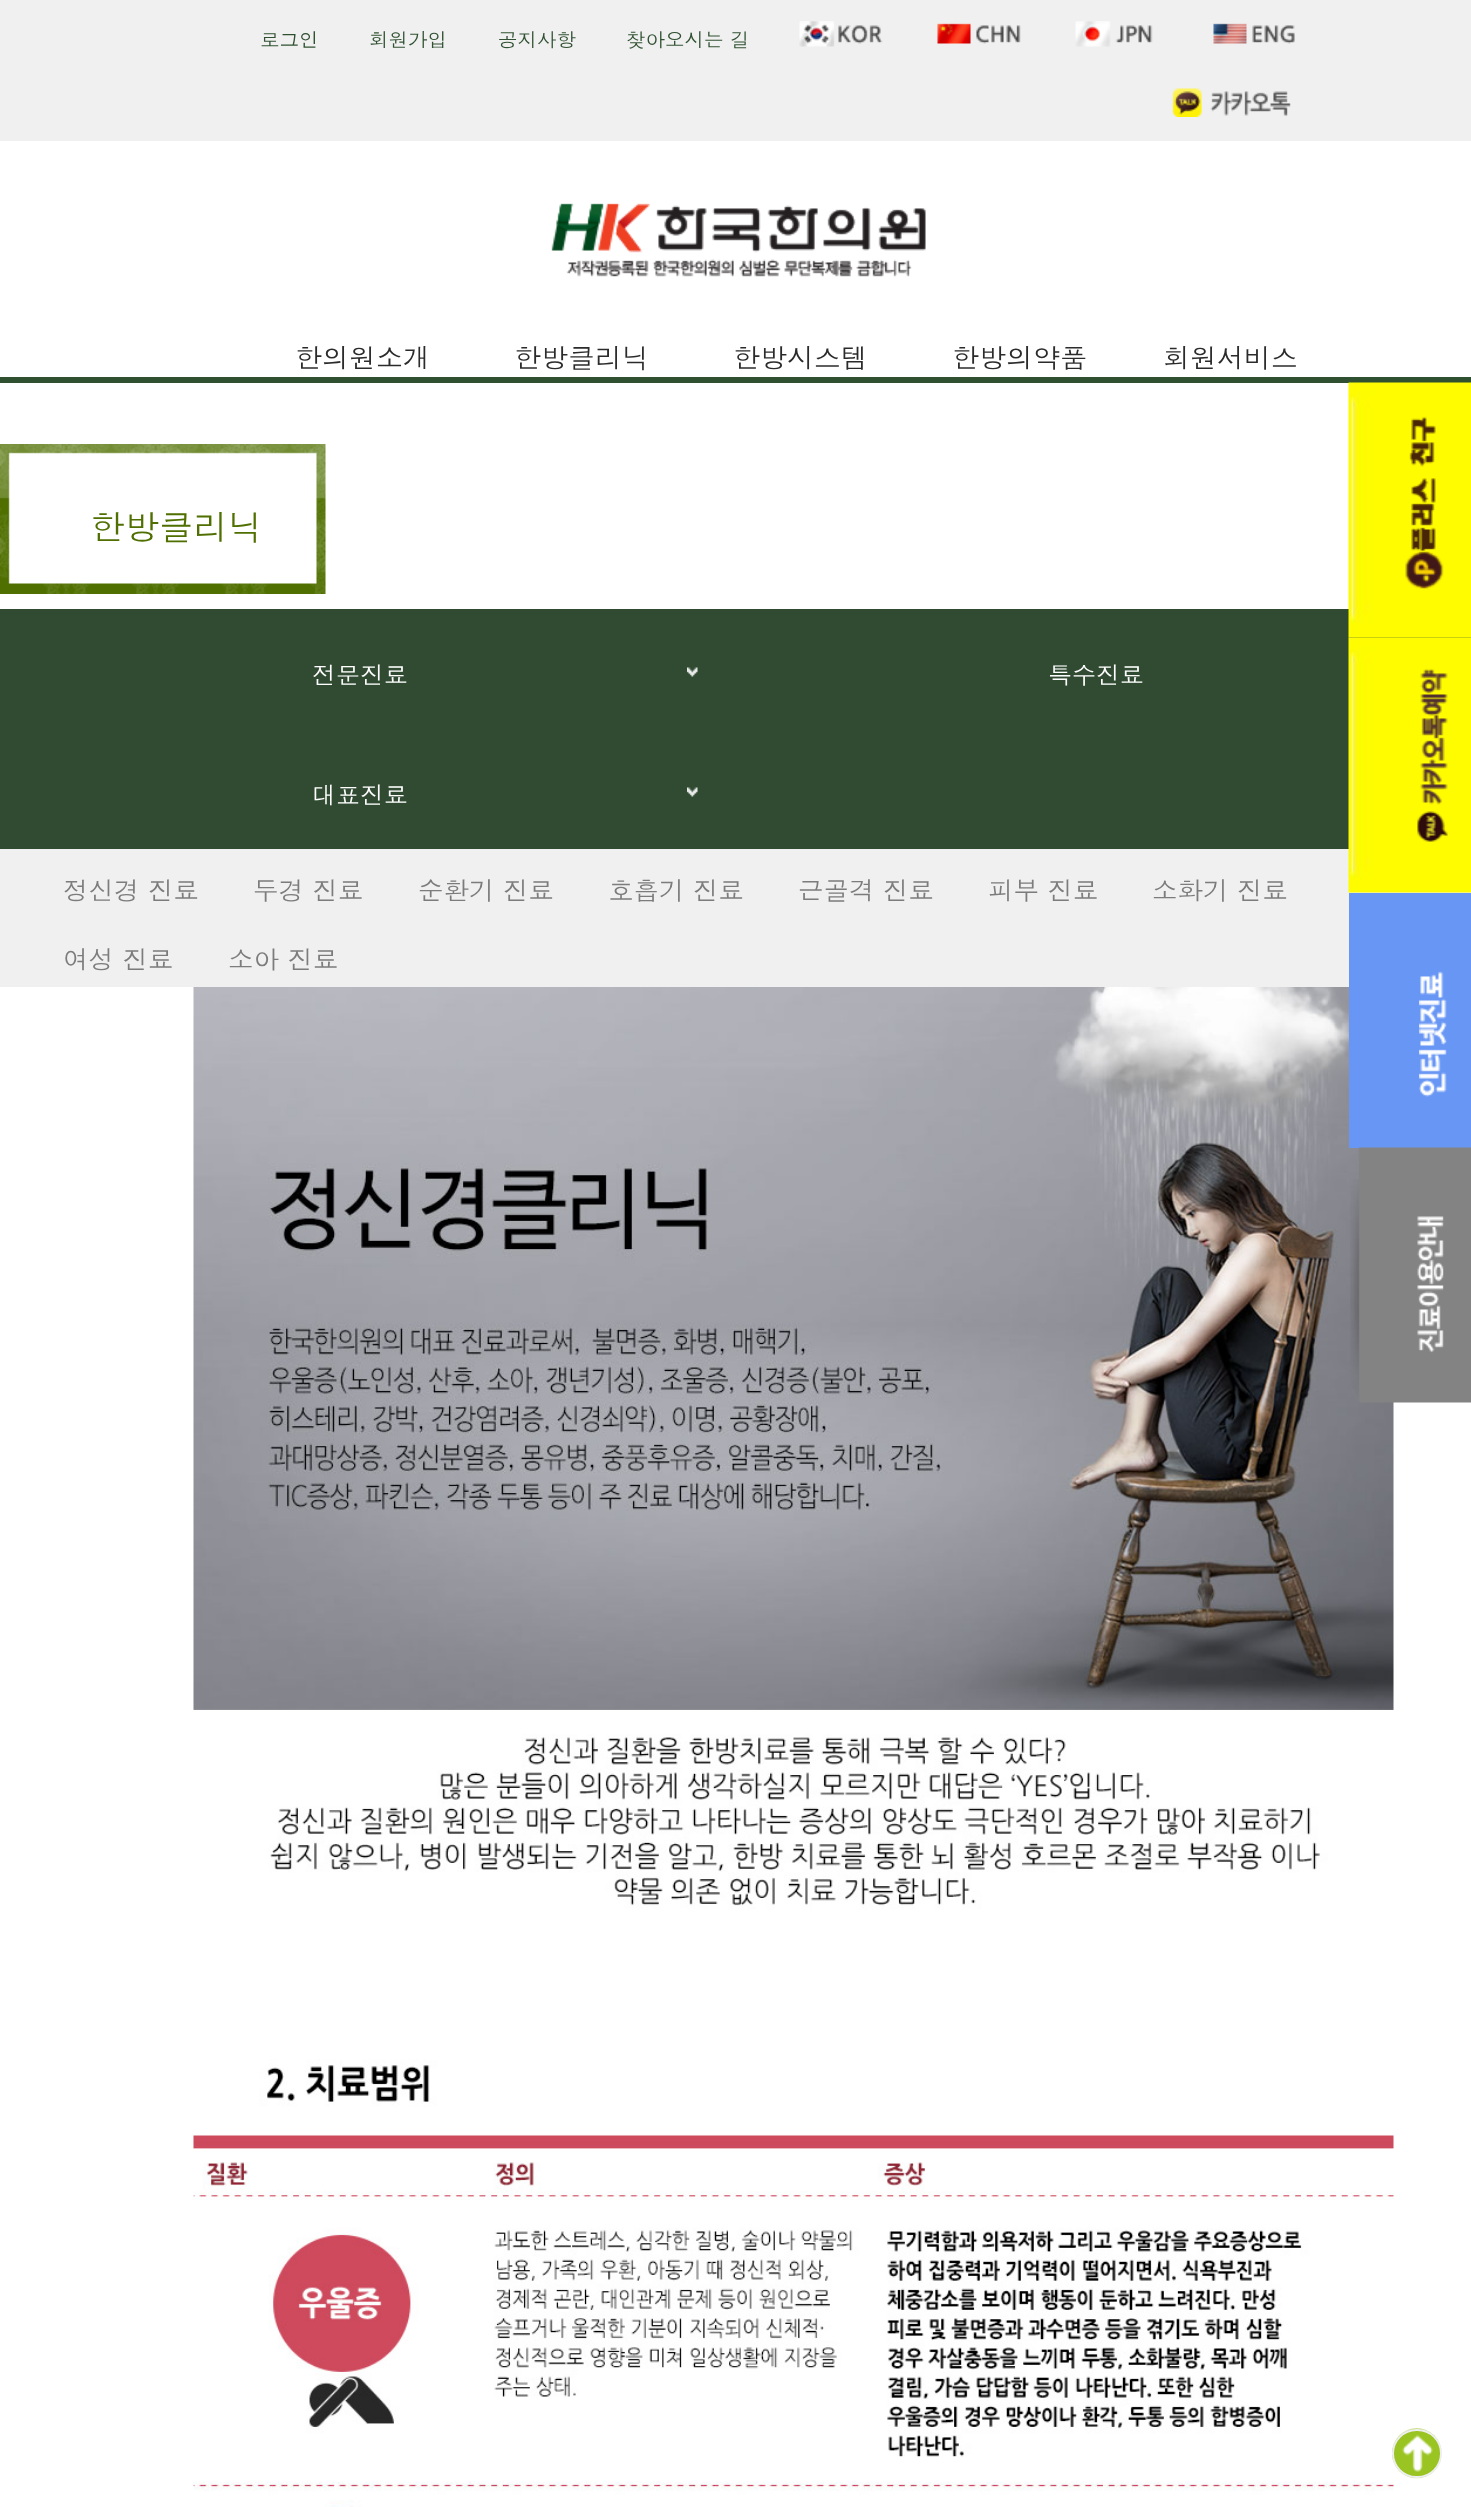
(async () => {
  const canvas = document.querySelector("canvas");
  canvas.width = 1471;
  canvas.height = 2507;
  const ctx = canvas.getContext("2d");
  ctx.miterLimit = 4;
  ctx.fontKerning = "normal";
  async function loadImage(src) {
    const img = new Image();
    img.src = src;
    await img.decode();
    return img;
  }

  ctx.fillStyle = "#ffffff";
  ctx.fillRect(0, 0, 1471, 2507);
  ctx.fillStyle = "#f0f0f0";
  ctx.fillRect(0, 0, 1471, 141);
  ctx.drawImage(await loadImage("img/1.png"), 799, 21, 84, 26);
  ctx.drawImage(await loadImage("img/2.png"), 937, 23, 84, 21);
  ctx.drawImage(await loadImage("img/3.png"), 1075, 21, 78, 26);
  ctx.drawImage(await loadImage("img/4.png"), 1213, 23, 82, 21);
  ctx.drawImage(await loadImage("img/5.png"), 1172, 88, 119, 29);
  ctx.fillStyle = "#2f5031";
  ctx.fillRect(0, 377, 1471, 6);
  ctx.drawImage(await loadImage("img/6.png"), 551, 203, 375, 74);
  ctx.drawImage(await loadImage("img/7.png"), 0, 444, 326, 150);
  ctx.fillStyle = "#314b33";
  ctx.fillRect(0, 609, 1471, 240);
  ctx.drawImage(await loadImage("img/8.png"), 687, 667, 11, 10);
  ctx.drawImage(await loadImage("img/8.png"), 687, 787, 11, 10);
  ctx.fillStyle = "#f0f0f0";
  ctx.fillRect(0, 849, 1471, 138);
  ctx.drawImage(await loadImage("img/9.png"), 1348, 382, 123, 256);
  ctx.drawImage(await loadImage("img/10.png"), 1405, 416, 39, 174);
  ctx.drawImage(await loadImage("img/11.png"), 1348, 637, 123, 256);
  ctx.drawImage(await loadImage("img/12.png"), 1417, 668, 31, 174);
  ctx.drawImage(await loadImage("img/16.png"), 193, 987, 1201, 723);
  ctx.fillStyle = "#6896f5";
  ctx.fillRect(1349, 893, 122, 255);
  ctx.drawImage(await loadImage("img/13.png"), 1419, 971, 28, 126);
  ctx.drawImage(await loadImage("img/14.png"), 1350, 1147, 121, 256);
  ctx.drawImage(await loadImage("img/15.png"), 1417, 1216, 27, 137);
  ctx.drawImage(await loadImage("img/17.png"), 193, 1734, 1201, 723);
  ctx.drawImage(await loadImage("img/18.png"), 193, 2481, 1201, 26);
  ctx.drawImage(await loadImage("img/19.png"), 1392, 2428, 50, 51);
  ctx.beginPath();
  ctx.roundRect(1393, 2430, 48, 47, 23.5);
  ctx.strokeStyle = "#efeff1";
  ctx.lineWidth = 2;
  ctx.stroke();
  ctx.font = "19.5px Dotum";
  ctx.fillStyle = "#2f5031";
  for (const [text, x, y] of [
    ["로그인", 260, 47],
    ["회원가입", 369, 47],
    ["공지사항", 498, 47],
    ["찾아오시는 길", 626, 47],
  ]) {
    ctx.fillText(text, x, y);
  }
  ctx.font = "27px Dotum";
  ctx.fillStyle = "#2b2b2b";
  for (const [text, x, y] of [
    ["한의원소개", 295, 368],
    ["한방클리닉", 514, 368],
    ["한방시스템", 733, 368],
    ["한방의약품", 952, 368],
    ["회원서비스", 1163, 368],
  ]) {
    ctx.fillText(text, x, y);
  }
  ctx.font = "34.5px Dotum";
  ctx.fillStyle = "#4f6f00";
  ctx.fillText("한방클리닉", 90, 540);
  ctx.font = "24px Dotum";
  ctx.fillStyle = "#ffffff";
  for (const [text, x, y] of [
    ["전문진료", 312, 684],
    ["특수진료", 1048, 684],
    ["대표진료", 312, 804],
  ]) {
    ctx.fillText(text, x, y);
  }
  ctx.font = "25.5px Dotum";
  ctx.fillStyle = "#7c7c7c";
  for (const [text, x, y] of [
    ["정신경 진료", 63, 900],
    ["두경 진료", 253, 900],
    ["순환기 진료", 418, 900],
    ["호흡기 진료", 608, 900],
    ["근골격 진료", 798, 900],
    ["피부 진료", 988, 900],
    ["소화기 진료", 1152, 900],
    ["여성 진료", 63, 969],
    ["소아 진료", 228, 969],
  ]) {
    ctx.fillText(text, x, y);
  }
})();
